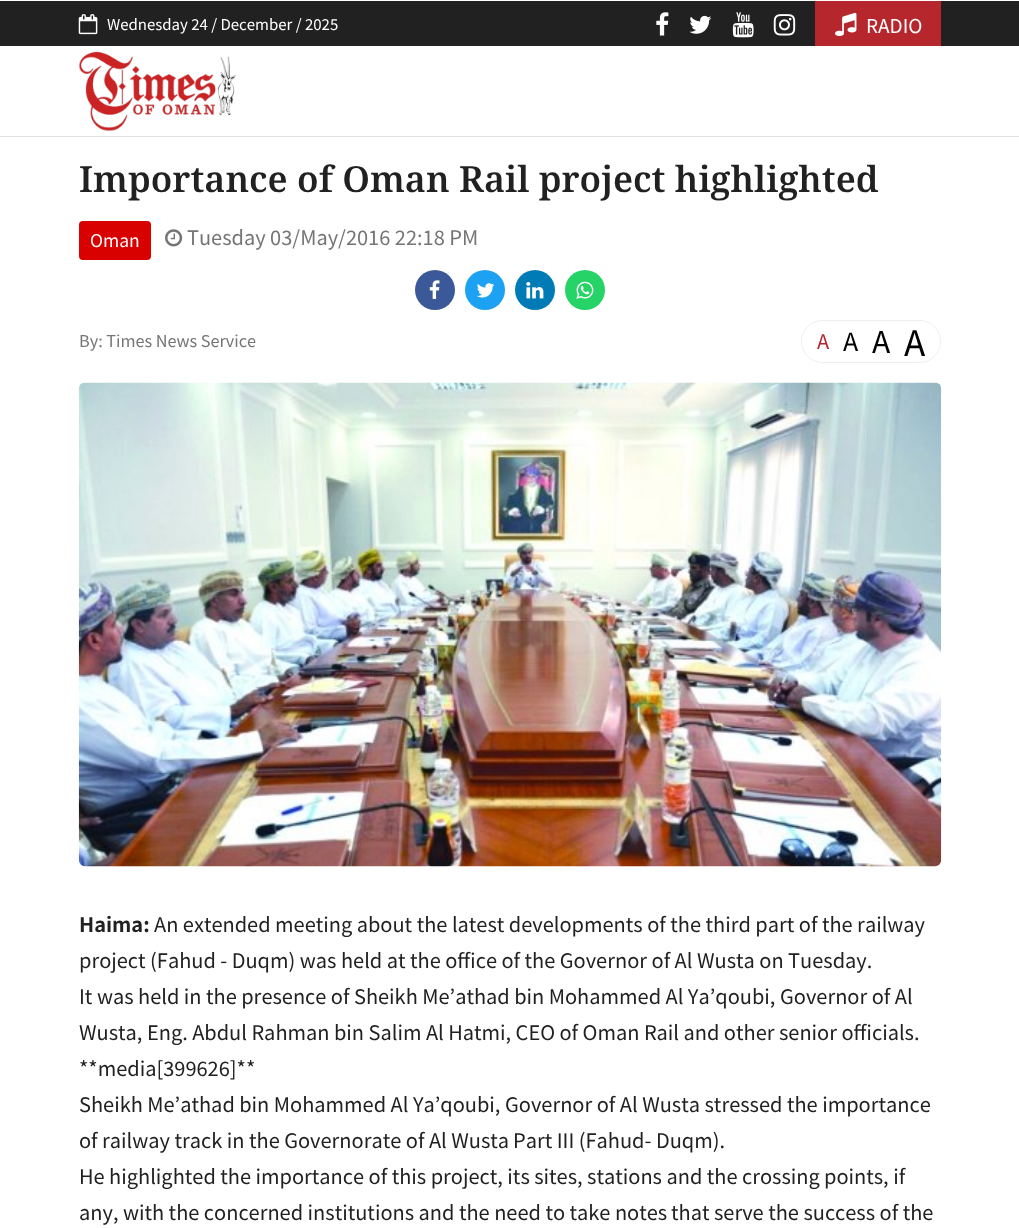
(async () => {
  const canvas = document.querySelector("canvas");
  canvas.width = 1019;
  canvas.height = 1228;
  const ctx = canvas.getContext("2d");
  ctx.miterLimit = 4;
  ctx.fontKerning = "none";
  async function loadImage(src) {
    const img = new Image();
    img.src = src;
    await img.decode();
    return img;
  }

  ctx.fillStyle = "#ffffff";
  ctx.fillRect(0, 0, 1019, 1228);
  ctx.fillStyle = "#212121";
  ctx.fillRect(0, 1, 1019, 45);
  ctx.drawImage(await loadImage("img/1.png"), 78, 14, 20, 21);
  ctx.drawImage(await loadImage("img/2.png"), 656, 12, 13, 24);
  ctx.drawImage(await loadImage("img/3.png"), 689, 15, 23, 19);
  ctx.drawImage(await loadImage("img/4.png"), 732, 12, 22, 26);
  ctx.drawImage(await loadImage("img/5.png"), 773, 14, 23, 22);
  ctx.fillStyle = "#b5272d";
  ctx.fillRect(815, 1, 126, 45);
  ctx.drawImage(await loadImage("img/6.png"), 835, 12, 22, 25);
  ctx.drawImage(await loadImage("img/7.png"), 79, 51, 157, 80);
  ctx.fillStyle = "#e0e0e0";
  ctx.fillRect(0, 136, 1019, 1);
  ctx.fillStyle = "#d90000";
  ctx.beginPath();
  ctx.roundRect(79, 221, 72, 39, 4);
  ctx.fill();
  ctx.drawImage(await loadImage("img/8.png"), 165, 229, 18, 18);
  ctx.fillStyle = "#3b5999";
  ctx.beginPath();
  ctx.arc(435, 290, 20, 0, Math.PI * 2);
  ctx.fill();
  ctx.drawImage(await loadImage("img/9.png"), 429, 280, 11, 19);
  ctx.fillStyle = "#1da1f2";
  ctx.beginPath();
  ctx.arc(485, 290, 20, 0, Math.PI * 2);
  ctx.fill();
  ctx.drawImage(await loadImage("img/10.png"), 476, 283, 19, 15);
  ctx.fillStyle = "#007bb5";
  ctx.beginPath();
  ctx.arc(535, 290, 20, 0, Math.PI * 2);
  ctx.fill();
  ctx.drawImage(await loadImage("img/11.png"), 526, 282, 18, 17);
  ctx.fillStyle = "#25d366";
  ctx.beginPath();
  ctx.arc(585, 290, 20, 0, Math.PI * 2);
  ctx.fill();
  ctx.drawImage(await loadImage("img/12.png"), 576, 281, 18, 18);
  ctx.beginPath();
  ctx.roundRect(801.5, 320.5, 139, 42, 21);
  ctx.strokeStyle = "#eeeeee";
  ctx.stroke();
  ctx.drawImage(await loadImage("img/13.png"), 78, 382, 864, 485);
  ctx.font = "15px Noto Sans JP";
  ctx.fillStyle = "#ffffff";
  ctx.fillText("Wednesday 24 / December / 2025", 107, 30);
  ctx.font = "19px Noto Sans JP";
  ctx.fillText("RADIO", 866, 33);
  ctx.font = "600 36px Noto Serif";
  ctx.fillStyle = "#212121";
  ctx.fillText("Importance of Oman Rail project highlighted", 79, 192);
  ctx.font = "17.5px Noto Sans JP";
  ctx.fillStyle = "#ffffff";
  ctx.fillText("Oman", 90, 247);
  ctx.font = "20px Noto Sans JP";
  ctx.fillStyle = "#757575";
  ctx.fillText("Tuesday 03/May/2016 22:18 PM", 187, 245);
  ctx.font = "16.25px Noto Sans JP";
  ctx.fillText("By: Times News Service", 79, 347);
  ctx.font = "20px Noto Sans JP";
  ctx.fillStyle = "#b5272d";
  ctx.fillText("A", 817, 349);
  ctx.font = "25px Noto Sans JP";
  ctx.fillStyle = "#000000";
  ctx.fillText("A", 843, 351);
  ctx.font = "30px Noto Sans JP";
  ctx.fillText("A", 872, 353);
  ctx.font = "35px Noto Sans JP";
  ctx.fillText("A", 904, 356);
  ctx.font = "bold 20px Noto Sans JP";
  ctx.fillStyle = "#212121";
  ctx.fillText("Haima:", 79, 932);
  ctx.font = "20px Noto Sans JP";
  for (const [text, x, y] of [
    ["An extended meeting about the latest developments of the third part of the railway", 154, 932],
    ["project (Fahud - Duqm) was held at the office of the Governor of Al Wusta on Tuesday.", 79, 968],
    ["It was held in the presence of Sheikh Me’athad bin Mohammed Al Ya’qoubi,", 79, 1004],
    ["Governor of Al", 780, 1004],
    ["Wusta, Eng. Abdul Rahman bin Salim Al Hatmi, CEO of Oman Rail and other senior officials.", 79, 1040],
    ["**media[399626]**", 79, 1076],
    ["Sheikh Me’athad bin Mohammed Al Ya’qoubi,", 79, 1112],
    ["Governor of Al Wusta stressed the importance", 505, 1112],
    ["of railway track in the Governorate of Al Wusta", 79, 1148],
    ["Part III (Fahud- Duqm).", 513, 1148],
    ["He highlighted the importance of this project, its sites, stations and the crossing", 79, 1184],
    ["points, if", 824, 1184],
    ["any, with the concerned institutions and the need to take notes", 79, 1220],
    ["that serve the success of the", 671, 1220],
  ]) {
    ctx.fillText(text, x, y);
  }
})();
